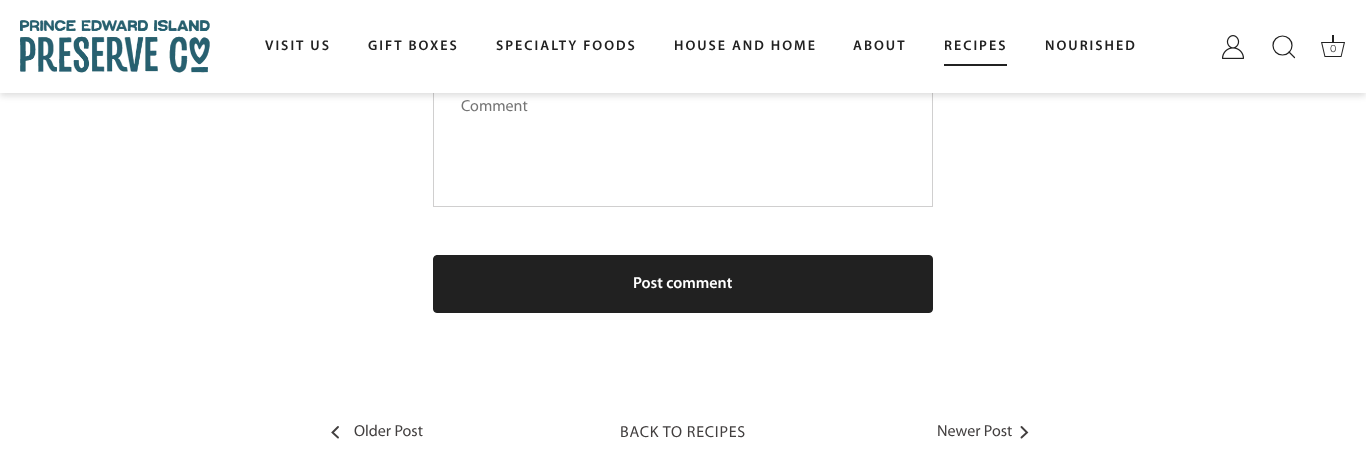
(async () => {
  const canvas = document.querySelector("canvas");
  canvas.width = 1366;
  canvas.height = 471;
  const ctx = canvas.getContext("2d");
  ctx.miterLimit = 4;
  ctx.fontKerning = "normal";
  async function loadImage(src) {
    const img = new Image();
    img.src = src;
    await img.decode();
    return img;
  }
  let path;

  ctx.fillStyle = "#ffffff";
  ctx.fillRect(0, 0, 1366, 471);
  ctx.strokeStyle = "#d0cfcf";
  ctx.strokeRect(433.5, 79.5, 499, 127);
  ctx.fillStyle = "rgba(0, 0, 0, 0.13)";
  ctx.filter = "blur(3px)";
  ctx.beginPath();
  ctx.rect(0, 3, 1366, 93);
  ctx.fill();
  ctx.filter = "none";
  ctx.fillStyle = "#ffffff";
  ctx.fillRect(0, 0, 1366, 93);
  ctx.drawImage(await loadImage("img/1.png"), 20, 20, 190, 53);
  ctx.fillStyle = "#212121";
  ctx.fillRect(944, 64, 63, 2);
  ctx.drawImage(await loadImage("img/2.png"), 1222, 35, 22, 24);
  ctx.beginPath();
  ctx.arc(1282.5, 45.5, 9.5, 0, Math.PI * 2);
  ctx.strokeStyle = "#212121";
  ctx.lineWidth = 1.2;
  ctx.stroke();
  path = new Path2D("M1294.5 57.5L1289 52");
  ctx.lineCap = "round";
  ctx.lineJoin = "round";
  ctx.stroke(path);
  ctx.drawImage(await loadImage("img/3.png"), 1321, 35, 24, 22);
  ctx.beginPath();
  ctx.roundRect(433.5, 255.5, 499, 57, 3.5);
  ctx.fill();
  ctx.lineWidth = 1;
  ctx.lineJoin = "miter";
  ctx.stroke();
  path = new Path2D("M338 427L332.5 432.5L338 437.5");
  ctx.strokeStyle = "#423f3f";
  ctx.lineWidth = 1.9;
  ctx.stroke(path);
  path = new Path2D("M1021.5 437.5L1027 432.5L1021.5 427");
  ctx.stroke(path);
  ctx.letterSpacing = "2px";
  ctx.font = "600 14px Myriad";
  for (const [text, x, y] of [
    ["VISIT US", 265, 50],
    ["GIFT BOXES", 368, 50],
    ["SPECIALTY FOODS", 496, 50],
    ["HOUSE AND HOME", 674, 50],
    ["ABOUT", 853, 50],
    ["RECIPES", 944, 50],
    ["NOURISHED", 1045, 50],
  ]) {
    ctx.fillText(text, x, y);
  }
  ctx.letterSpacing = "0px";
  ctx.font = "300 10px Figtree";
  ctx.fillText("0", 1330, 52);
  ctx.font = "16px Myriad";
  ctx.fillStyle = "#757575";
  ctx.fillText("Comment", 461, 111);
  ctx.font = "600 16px Myriad";
  ctx.fillStyle = "#ffffff";
  ctx.fillText("Post comment", 633, 288);
  ctx.font = "16px Myriad";
  ctx.fillStyle = "#423f3f";
  ctx.fillText("Older Post", 354, 436);
  ctx.fillText("Newer Post", 937, 436);
  ctx.letterSpacing = "0.75px";
  ctx.fillText("BACK TO RECIPES", 620, 437);
})();
